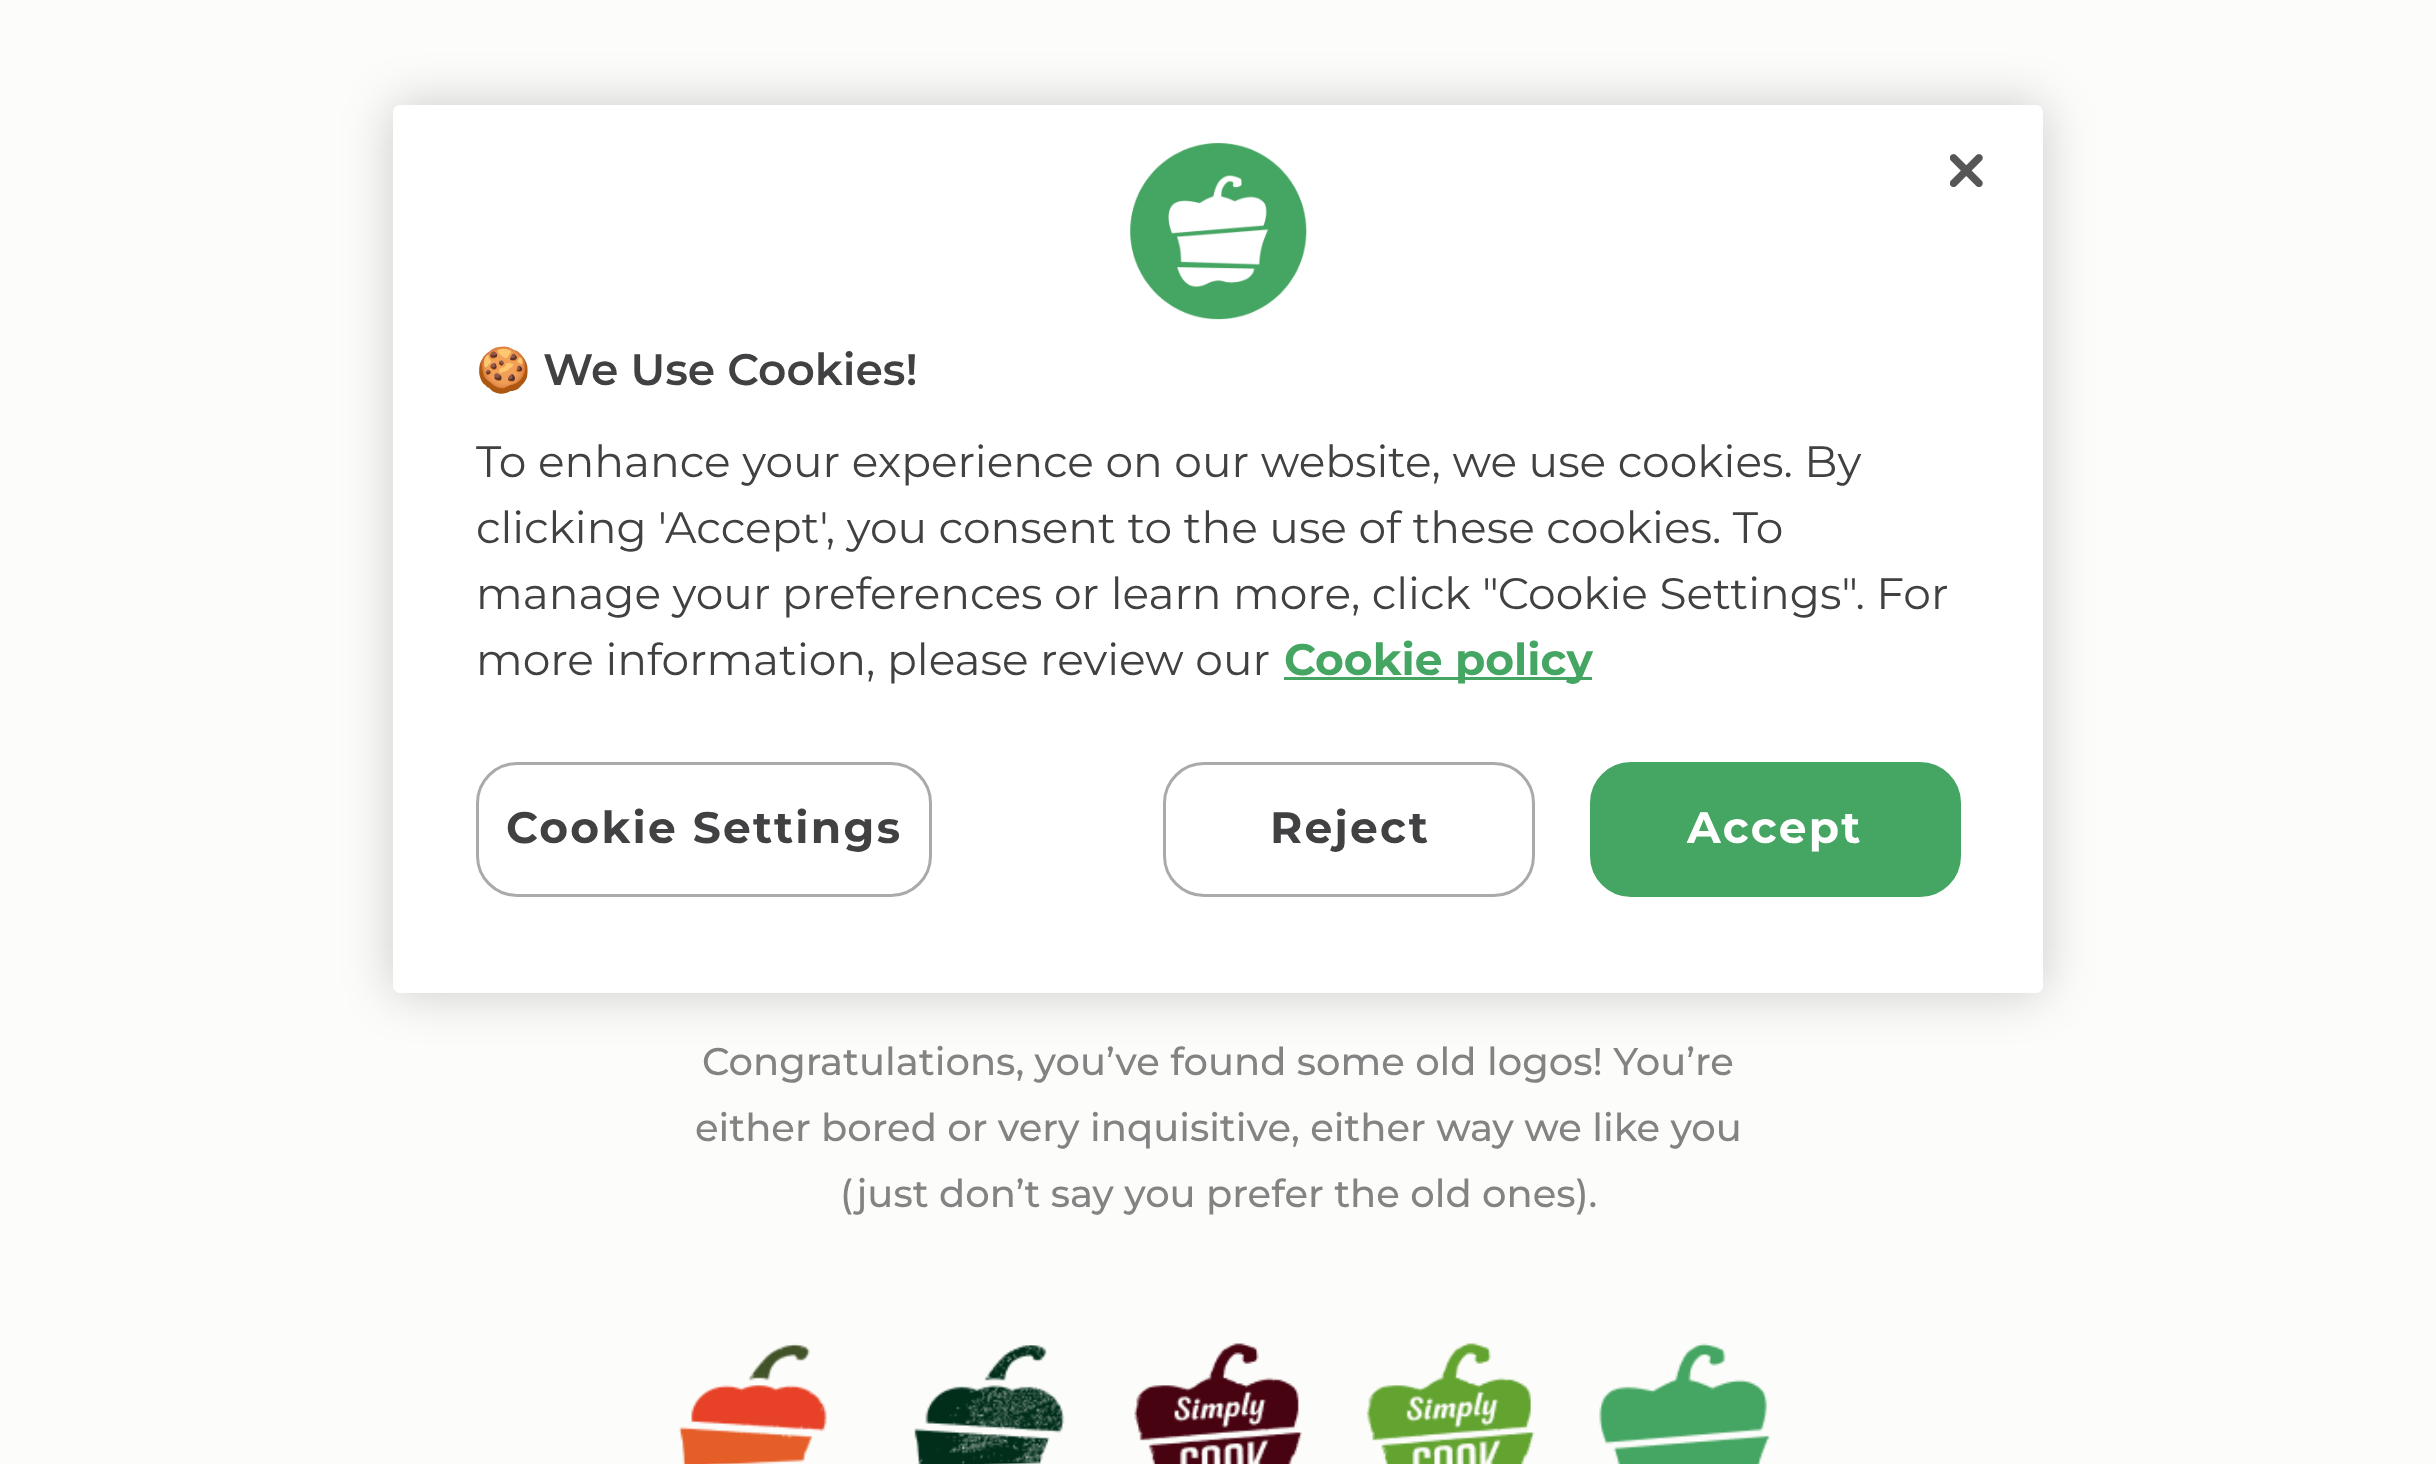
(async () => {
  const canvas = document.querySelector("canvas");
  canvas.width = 2436;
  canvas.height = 1464;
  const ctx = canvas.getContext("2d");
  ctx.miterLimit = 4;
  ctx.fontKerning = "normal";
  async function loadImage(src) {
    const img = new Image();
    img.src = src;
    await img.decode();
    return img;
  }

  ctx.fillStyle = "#fcfcfa";
  ctx.fillRect(0, 0, 2436, 1464);
  ctx.fillStyle = "rgba(0, 0, 0, 0.2)";
  ctx.filter = "blur(25px)";
  ctx.beginPath();
  ctx.roundRect(393, 105, 1650, 888, 7);
  ctx.fill();
  ctx.filter = "none";
  ctx.fillStyle = "#ffffff";
  ctx.beginPath();
  ctx.roundRect(393, 105, 1650, 888, 7);
  ctx.fill();
  ctx.drawImage(await loadImage("img/1.png"), 1950, 154, 33, 33);
  ctx.drawImage(await loadImage("img/2.png"), 1130, 143, 177, 177);
  ctx.fillStyle = "#45a562";
  ctx.fillRect(1284, 677, 308, 3);
  ctx.beginPath();
  ctx.roundRect(477.5, 763.5, 453, 132, 39.5);
  ctx.strokeStyle = "#aaaaaa";
  ctx.lineWidth = 3;
  ctx.stroke();
  ctx.beginPath();
  ctx.roundRect(1164.5, 763.5, 369, 132, 39.5);
  ctx.stroke();
  ctx.beginPath();
  ctx.roundRect(1591.5, 763.5, 368, 132, 39.5);
  ctx.fill();
  ctx.strokeStyle = "#45a562";
  ctx.stroke();
  ctx.drawImage(await loadImage("img/3.png"), 678, 1343, 1093, 121);
  ctx.font = "bold 44px Noto Color Emoji";
  ctx.fillStyle = "#414042";
  ctx.fillText("🍪", 476, 385);
  ctx.font = "600 44px Montserrat";
  ctx.fillText("We Use Cookies!", 543, 385);
  ctx.font = "44px Montserrat";
  for (const [text, x, y] of [
    ["To enhance your experience on our website, we use cookies. By", 476, 477],
    ["clicking 'Accept', you consent to the use of these cookies. To", 476, 543],
    ["manage your preferences or learn more, click \"Cookie Settings\". For", 476, 609],
    ["more information, please review our", 476, 675],
  ]) {
    ctx.fillText(text, x, y);
  }
  ctx.font = "bold 44px Montserrat";
  ctx.fillStyle = "#45a562";
  ctx.fillText("Cookie policy", 1284, 675);
  ctx.letterSpacing = "2.25px";
  ctx.fillStyle = "#414042";
  ctx.fillText("Cookie Settings", 506, 843);
  ctx.fillText("Reject", 1270, 843);
  ctx.fillStyle = "#ffffff";
  ctx.fillText("Accept", 1687, 843);
  ctx.letterSpacing = "0px";
  ctx.font = "500 38.5px Montserrat";
  ctx.fillStyle = "#838383";
  for (const [text, x, y] of [
    ["Congratulations, you’ve found some old logos! You’re", 702, 1075],
    ["either bored or very inquisitive, either way we like you", 695, 1141],
    ["(just don’t say you prefer the old ones).", 840, 1207],
  ]) {
    ctx.fillText(text, x, y);
  }
})();
